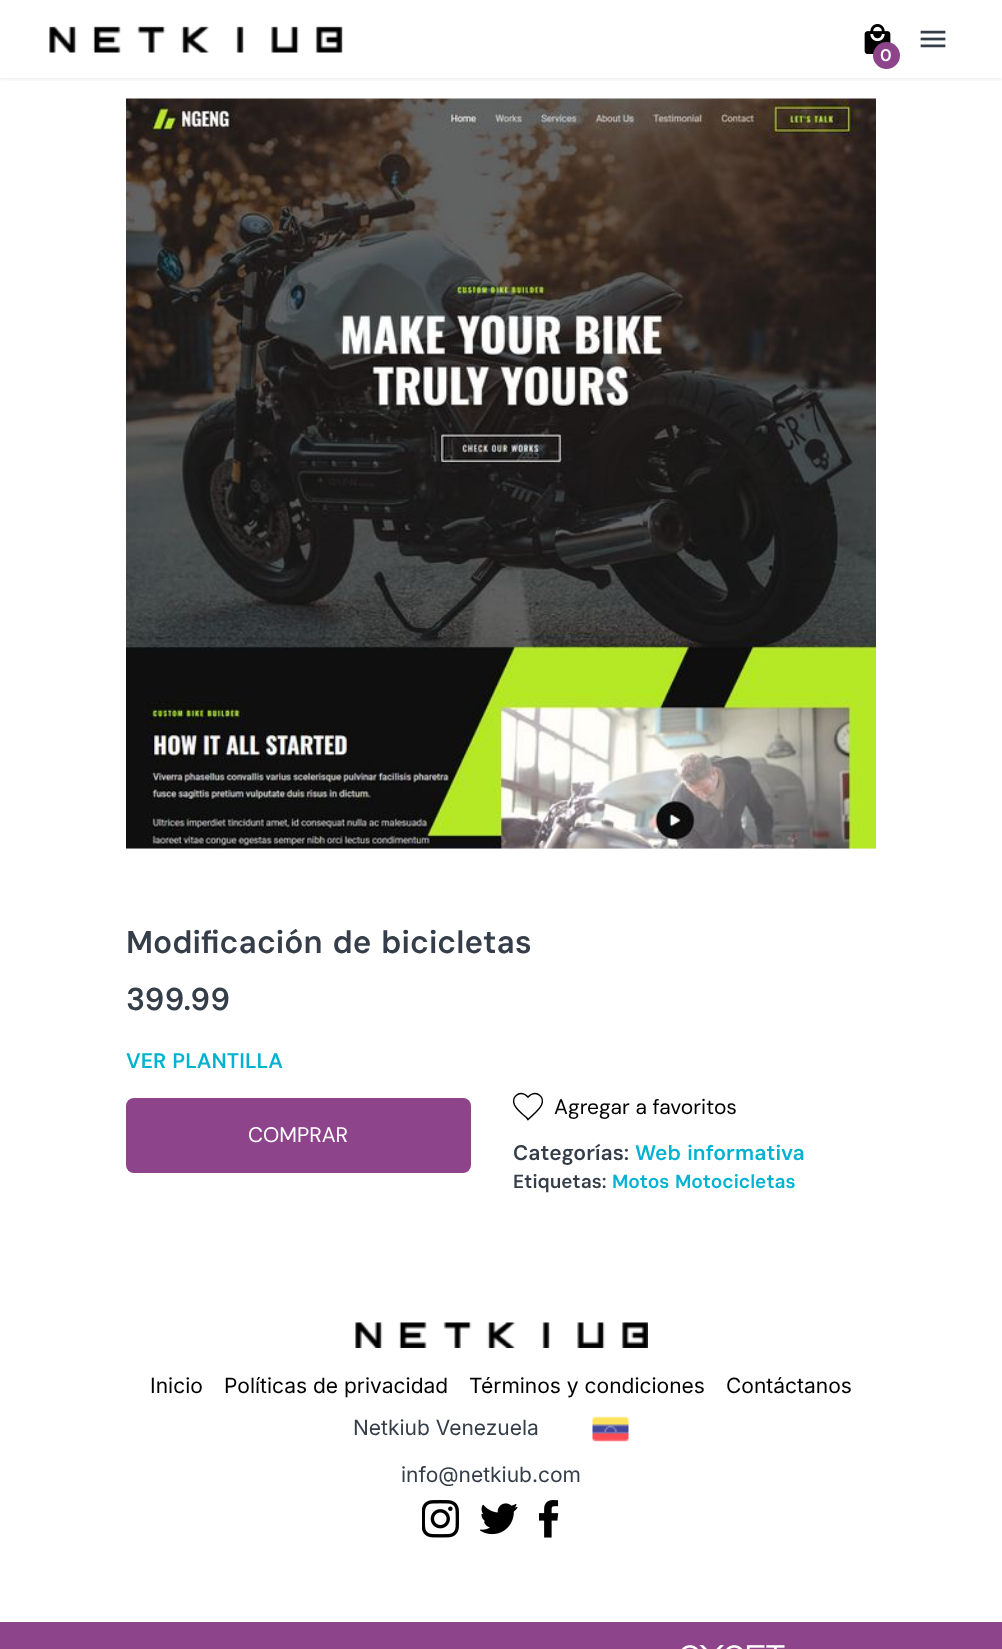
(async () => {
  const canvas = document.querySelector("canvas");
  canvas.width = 1002;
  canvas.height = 1649;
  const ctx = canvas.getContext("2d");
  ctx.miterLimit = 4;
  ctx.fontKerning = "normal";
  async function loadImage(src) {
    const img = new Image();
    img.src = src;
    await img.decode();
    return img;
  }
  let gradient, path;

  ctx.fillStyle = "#ffffff";
  ctx.fillRect(0, 0, 1002, 1649);
  ctx.save();
  ctx.beginPath();
  ctx.rect(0, 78, 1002, 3);
  ctx.clip();
  ctx.fillStyle = "rgba(0, 0, 0, 0.06)";
  ctx.filter = "blur(1.5px)";
  ctx.beginPath();
  ctx.rect(0, 2, 1002, 78);
  ctx.fill();
  ctx.filter = "none";
  ctx.restore();
  ctx.drawImage(await loadImage("img/1.png"), 49, 26, 294, 27);
  ctx.drawImage(await loadImage("img/2.png"), 920, 30, 26, 18);
  ctx.drawImage(await loadImage("img/3.png"), 864, 24, 27, 30);
  ctx.fillStyle = "#8d448b";
  ctx.beginPath();
  ctx.arc(886.5, 55.5, 13.5, 0, Math.PI * 2);
  ctx.fill();
  gradient = ctx.createLinearGradient(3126, 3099, 126, 99);
  gradient.addColorStop(0, "#e7e7e7");
  gradient.addColorStop(0.33, "#ebebeb");
  gradient.addColorStop(0.67, "#efefef");
  gradient.addColorStop(1, "#f3f3f3");
  ctx.fillStyle = gradient;
  ctx.fillRect(126, 848, 750, 1);
  ctx.drawImage(await loadImage("img/4.png"), 126, 98, 750, 751);
  ctx.fillStyle = "#8d448b";
  ctx.beginPath();
  ctx.roundRect(126, 1098, 345, 75, 8);
  ctx.fill();
  path = new Path2D("M526.5 1117.5C522 1114 517 1110 514.5 1105C510.5 1095.5 521.5 1089.5 528 1097C534.5 1089.5 545.5 1095.5 541.5 1105C539 1110.5 532.5 1115 528 1119.5Z");
  ctx.strokeStyle = "#000000";
  ctx.lineWidth = 1.5;
  ctx.stroke(path);
  ctx.drawImage(await loadImage("img/5.png"), 355, 1322, 293, 26);
  ctx.drawImage(await loadImage("img/6.png"), 592, 1416, 37, 26);
  ctx.drawImage(await loadImage("img/7.png"), 422, 1500, 37, 38);
  ctx.drawImage(await loadImage("img/8.png"), 480, 1503, 38, 32);
  ctx.drawImage(await loadImage("img/9.png"), 539, 1500, 20, 38);
  ctx.fillRect(0, 1622, 1002, 27);
  ctx.drawImage(await loadImage("img/10.png"), 681, 1645, 104, 4);
  ctx.font = "600 17px 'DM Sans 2'";
  ctx.fillStyle = "#ffffff";
  ctx.fillText("0", 880, 61);
  ctx.wordSpacing = "2px";
  ctx.font = "600 31.5px DM Sans";
  ctx.fillStyle = "#343d48";
  ctx.fillText("Modificación de bicicletas", 126, 953);
  ctx.wordSpacing = "0px";
  ctx.fillText("399.99", 126, 1010);
  ctx.wordSpacing = "1px";
  ctx.font = "600 21px DM Sans";
  ctx.fillStyle = "#03b2d1";
  ctx.fillText("VER PLANTILLA", 126, 1068);
  ctx.wordSpacing = "0px";
  ctx.font = "21px DM Sans";
  ctx.fillStyle = "#ffffff";
  ctx.fillText("COMPRAR", 248, 1142);
  ctx.fillStyle = "#000000";
  ctx.fillText("Agregar a favoritos", 554, 1114);
  ctx.font = "600 21px DM Sans";
  ctx.fillStyle = "#343d48";
  ctx.fillText("Categorías:", 513, 1160);
  ctx.wordSpacing = "1px";
  ctx.fillStyle = "#03b2d1";
  ctx.fillText("Web informativa", 635, 1160);
  ctx.wordSpacing = "0px";
  ctx.font = "600 19px DM Sans";
  ctx.fillStyle = "#343d48";
  ctx.fillText("Etiquetas:", 513, 1188);
  ctx.fillStyle = "#03b2d1";
  ctx.fillText("Motos", 612, 1188);
  ctx.fillText("Motocicletas", 675, 1188);
  ctx.font = "21px Inter";
  ctx.fillStyle = "#000000";
  for (const [text, x, y] of [
    ["Inicio", 150, 1393],
    ["Políticas de privacidad", 224, 1393],
    ["Términos y condiciones", 469, 1393],
    ["Contáctanos", 726, 1393],
  ]) {
    ctx.fillText(text, x, y);
  }
  ctx.fillStyle = "#343d48";
  ctx.fillText("Netkiub Venezuela", 353, 1435);
  ctx.fillText("info@netkiub.com", 401, 1482);
})();
